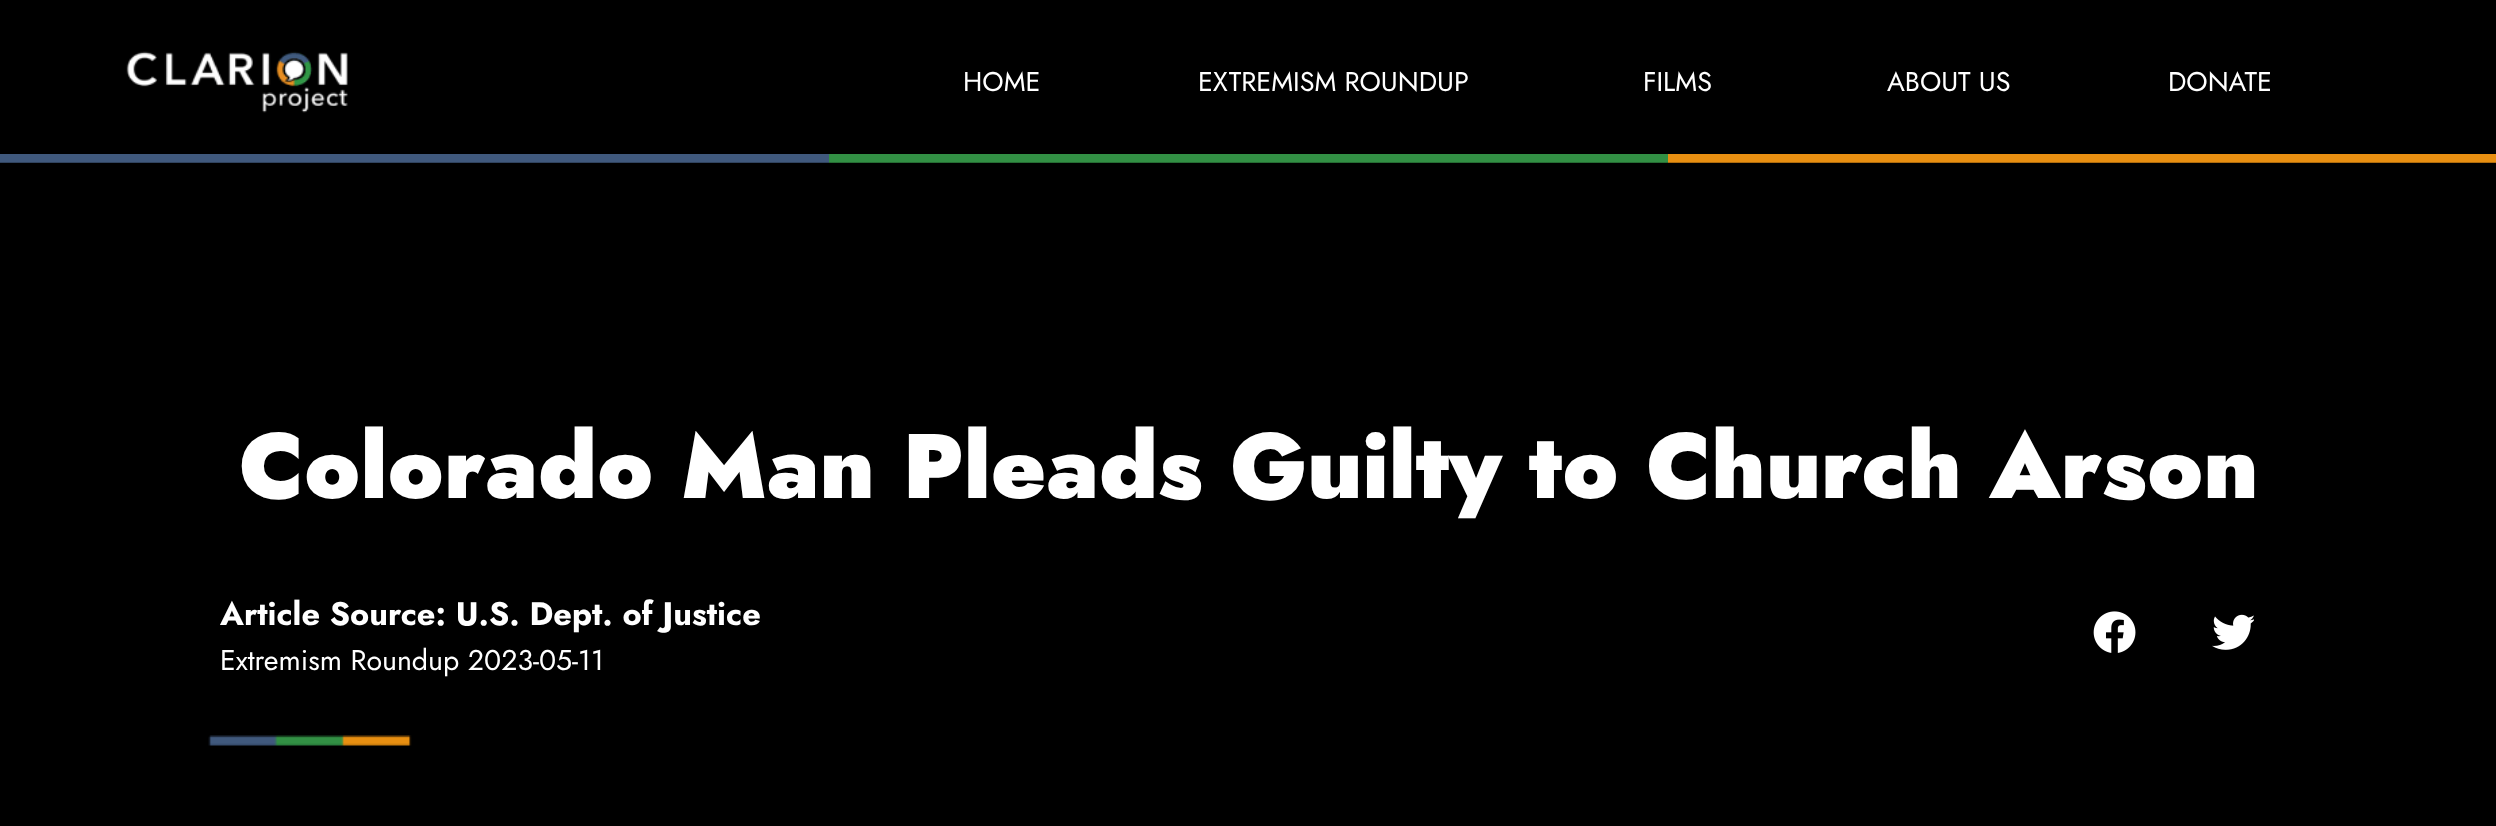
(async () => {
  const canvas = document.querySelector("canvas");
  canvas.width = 2496;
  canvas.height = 826;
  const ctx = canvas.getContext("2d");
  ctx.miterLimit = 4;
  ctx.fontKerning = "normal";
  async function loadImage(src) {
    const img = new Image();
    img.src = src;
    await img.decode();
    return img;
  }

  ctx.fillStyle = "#000000";
  ctx.fillRect(0, 0, 2496, 826);
  ctx.drawImage(await loadImage("img/1.png"), 126, 51, 222, 62);
  ctx.drawImage(await loadImage("img/2.png"), 0, 154, 2496, 9);
  ctx.drawImage(await loadImage("img/3.png"), 2093, 611, 43, 42);
  ctx.drawImage(await loadImage("img/4.png"), 2212, 614, 42, 36);
  ctx.drawImage(await loadImage("img/5.png"), 208, 735, 204, 11);
  ctx.font = "27px Jost";
  ctx.fillStyle = "#ffffff";
  for (const [text, x, y] of [
    ["HOME", 963, 91],
    ["EXTREMISM ROUNDUP", 1198, 91],
    ["FILMS", 1643, 91],
    ["ABOUT US", 1887, 91],
    ["DONATE", 2168, 91],
  ]) {
    ctx.fillText(text, x, y);
  }
  ctx.font = "900 91.6px Jost";
  ctx.fillText("Colorado Man Pleads Guilty to Church Arson", 239, 498);
  ctx.font = "bold 32.5px Jost";
  ctx.fillText("Article Source: U.S. Dept. of Justice", 220, 625);
  ctx.font = "28.5px Jost";
  ctx.fillText("Extremism Roundup 2023-05-11", 220, 670);
})();
